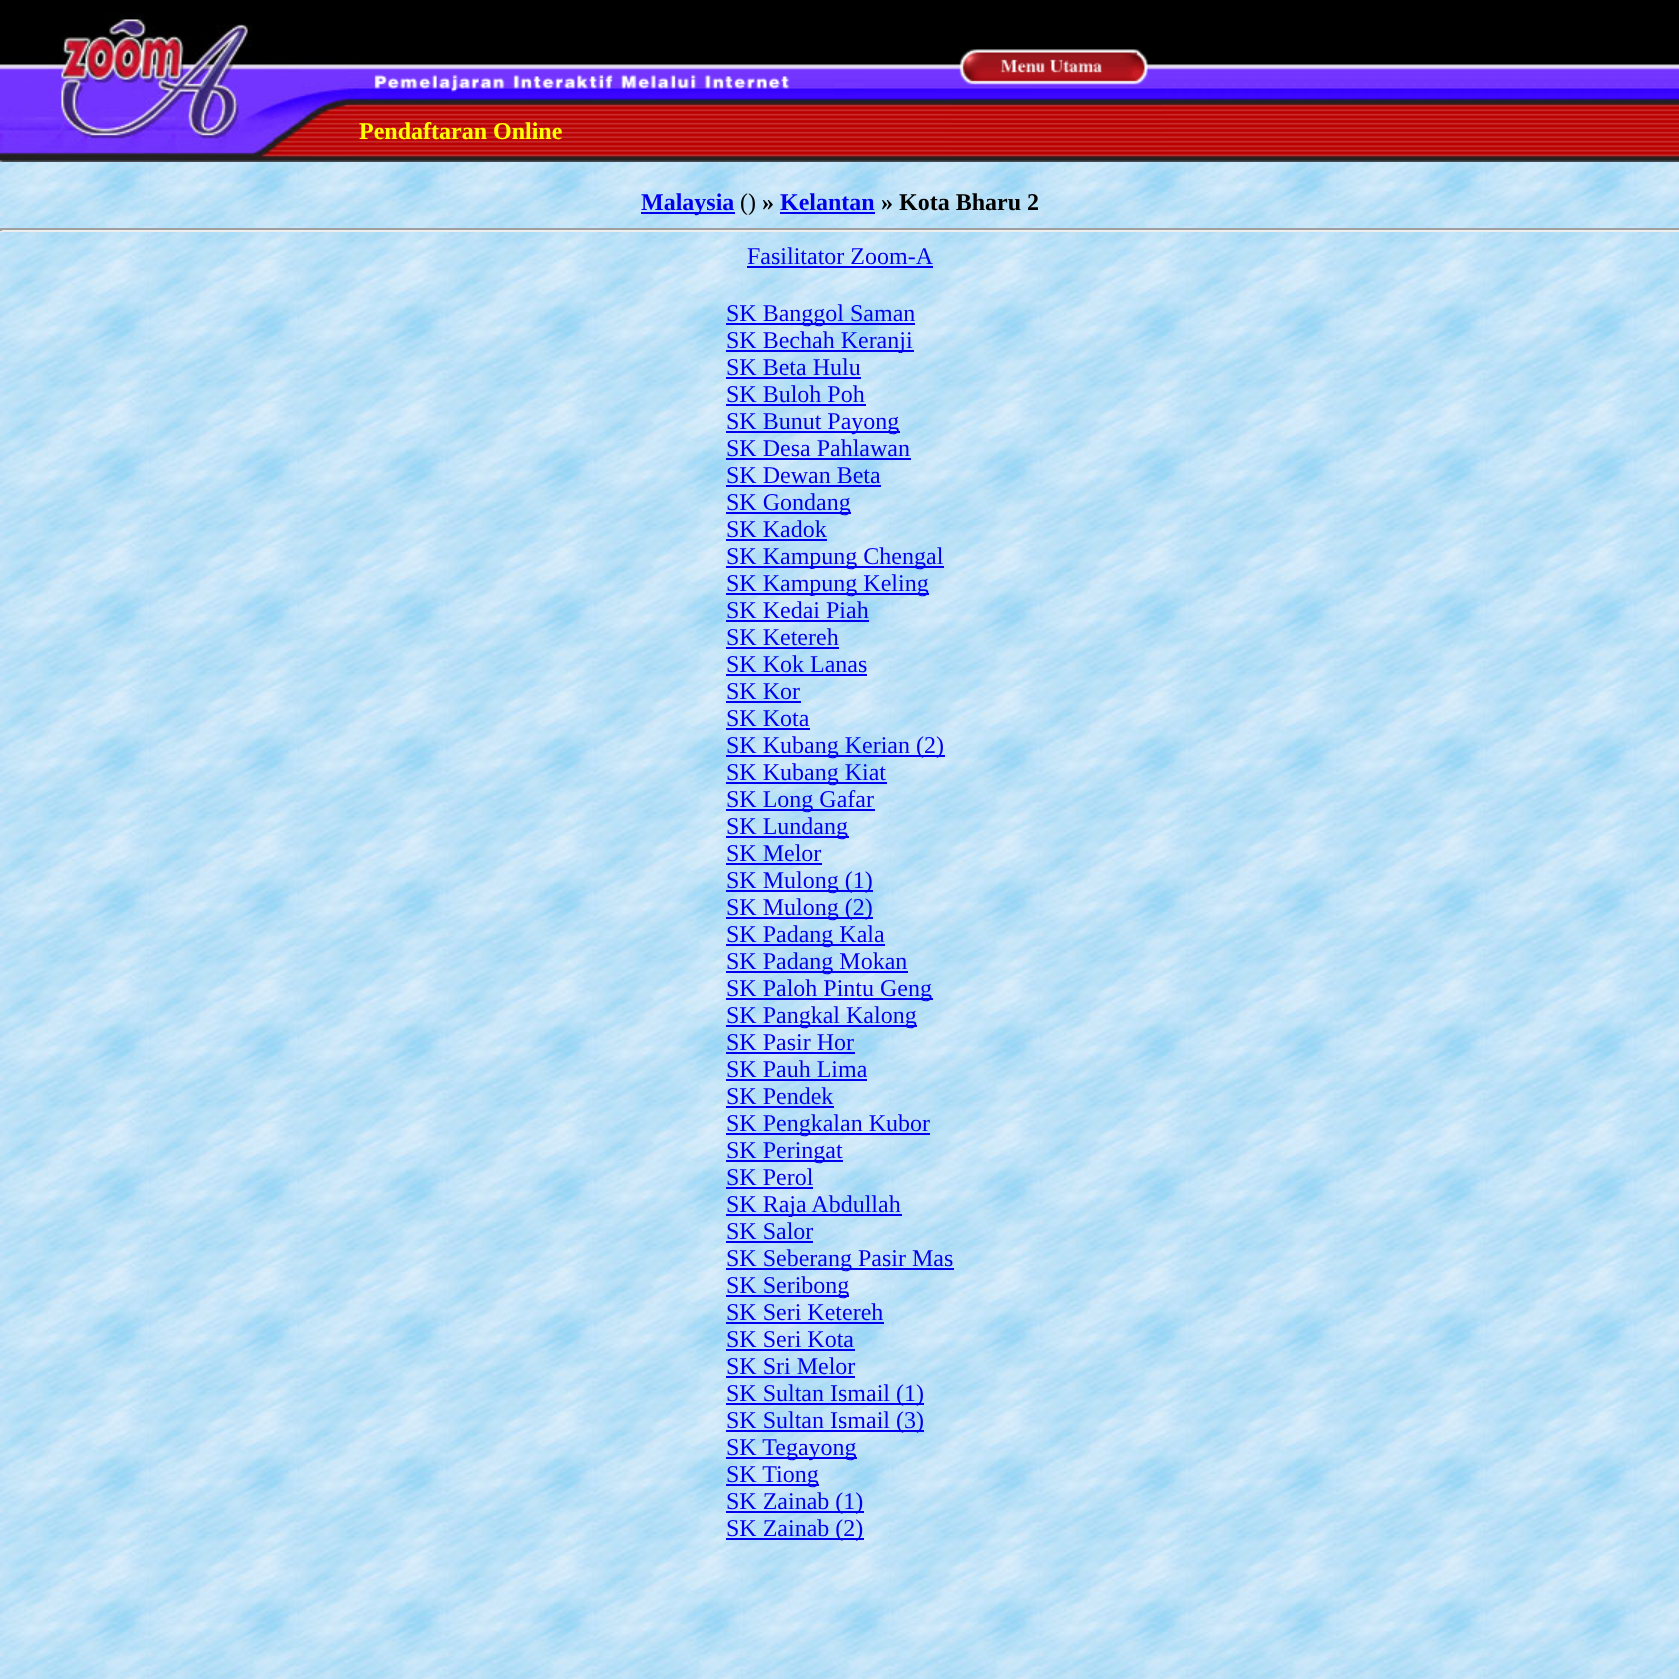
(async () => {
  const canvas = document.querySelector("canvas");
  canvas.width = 1679;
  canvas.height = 1679;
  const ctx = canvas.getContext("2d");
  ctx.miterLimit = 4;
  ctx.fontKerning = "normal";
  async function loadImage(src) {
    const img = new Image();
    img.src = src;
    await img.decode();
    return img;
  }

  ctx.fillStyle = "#ffffff";
  ctx.fillRect(0, 0, 1679, 1679);
  ctx.drawImage(await loadImage("img/1.png"), 0, 162, 1679, 1517);
  ctx.drawImage(await loadImage("img/2.png"), 0, 0, 1679, 162);
  ctx.drawImage(await loadImage("img/3.png"), 0, 12, 359, 150);
  ctx.drawImage(await loadImage("img/4.png"), 358, 68, 593, 33);
  ctx.drawImage(await loadImage("img/5.png"), 951, 49, 211, 107);
  for (const [x, y, w, h, color] of [
    [641, 212, 94, 2, "#0000ee"],
    [780, 212, 95, 2, "#0000ee"],
    [0, 228, 1679, 2, "#9f9f9f"],
    [0, 230, 1679, 2, "#eeeeee"],
    [0, 228, 2, 3, "#9f9f9f"],
    [747, 266, 186, 2, "#0000ee"],
    [726, 323, 189, 2, "#0000ee"],
    [726, 350, 188, 2, "#0000ee"],
    [726, 377, 135, 2, "#0000ee"],
    [726, 404, 140, 2, "#0000ee"],
    [726, 431, 174, 2, "#0000ee"],
    [726, 458, 185, 2, "#0000ee"],
    [726, 485, 155, 2, "#0000ee"],
    [726, 512, 125, 2, "#0000ee"],
    [726, 539, 101, 2, "#0000ee"],
    [726, 566, 218, 2, "#0000ee"],
    [726, 593, 203, 2, "#0000ee"],
    [726, 620, 143, 2, "#0000ee"],
    [726, 647, 113, 2, "#0000ee"],
    [726, 674, 141, 2, "#0000ee"],
    [726, 701, 75, 2, "#0000ee"],
    [726, 728, 84, 2, "#0000ee"],
    [726, 755, 219, 2, "#0000ee"],
    [726, 782, 161, 2, "#0000ee"],
    [726, 809, 149, 2, "#0000ee"],
    [726, 836, 123, 2, "#0000ee"],
    [726, 863, 96, 2, "#0000ee"],
    [726, 890, 147, 2, "#0000ee"],
    [726, 917, 147, 2, "#0000ee"],
    [726, 944, 159, 2, "#0000ee"],
    [726, 971, 182, 2, "#0000ee"],
    [726, 998, 207, 2, "#0000ee"],
    [726, 1025, 191, 2, "#0000ee"],
    [726, 1052, 129, 2, "#0000ee"],
    [726, 1079, 141, 2, "#0000ee"],
    [726, 1106, 108, 2, "#0000ee"],
    [726, 1133, 204, 2, "#0000ee"],
    [726, 1160, 117, 2, "#0000ee"],
    [726, 1187, 87, 2, "#0000ee"],
    [726, 1214, 176, 2, "#0000ee"],
    [726, 1241, 87, 2, "#0000ee"],
    [726, 1268, 228, 2, "#0000ee"],
    [726, 1295, 123, 2, "#0000ee"],
    [726, 1322, 158, 2, "#0000ee"],
    [726, 1349, 129, 2, "#0000ee"],
    [726, 1376, 129, 2, "#0000ee"],
    [726, 1403, 198, 2, "#0000ee"],
    [726, 1430, 198, 2, "#0000ee"],
    [726, 1457, 131, 2, "#0000ee"],
    [726, 1484, 93, 2, "#0000ee"],
    [726, 1511, 138, 2, "#0000ee"],
    [726, 1538, 138, 2, "#0000ee"],
  ]) {
    ctx.fillStyle = color;
    ctx.fillRect(x, y, w, h);
  }
  ctx.font = "bold 24px Liberation Serif";
  ctx.fillStyle = "#ffff00";
  ctx.fillText("Pendaftaran Online", 359, 139);
  ctx.fillStyle = "#0000ee";
  ctx.fillText("Malaysia", 641, 210);
  ctx.font = "24px Liberation Serif";
  ctx.fillStyle = "#000000";
  ctx.fillText("()", 740, 210);
  ctx.font = "bold 24px Liberation Serif";
  ctx.fillText("»", 762, 210);
  ctx.fillStyle = "#0000ee";
  ctx.fillText("Kelantan", 780, 210);
  ctx.fillStyle = "#000000";
  ctx.fillText("» Kota Bharu 2", 881, 210);
  ctx.font = "24px Liberation Serif";
  ctx.fillStyle = "#0000ee";
  for (const [text, x, y] of [
    ["Fasilitator Zoom-A", 747, 264],
    ["SK Banggol Saman", 726, 321],
    ["SK Bechah Keranji", 726, 348],
    ["SK Beta Hulu", 726, 375],
    ["SK Buloh Poh", 726, 402],
    ["SK Bunut Payong", 726, 429],
    ["SK Desa Pahlawan", 726, 456],
    ["SK Dewan Beta", 726, 483],
    ["SK Gondang", 726, 510],
    ["SK Kadok", 726, 537],
    ["SK Kampung Chengal", 726, 564],
    ["SK Kampung Keling", 726, 591],
    ["SK Kedai Piah", 726, 618],
    ["SK Ketereh", 726, 645],
    ["SK Kok Lanas", 726, 672],
    ["SK Kor", 726, 699],
    ["SK Kota", 726, 726],
    ["SK Kubang Kerian (2)", 726, 753],
    ["SK Kubang Kiat", 726, 780],
    ["SK Long Gafar", 726, 807],
    ["SK Lundang", 726, 834],
    ["SK Melor", 726, 861],
    ["SK Mulong (1)", 726, 888],
    ["SK Mulong (2)", 726, 915],
    ["SK Padang Kala", 726, 942],
    ["SK Padang Mokan", 726, 969],
    ["SK Paloh Pintu Geng", 726, 996],
    ["SK Pangkal Kalong", 726, 1023],
    ["SK Pasir Hor", 726, 1050],
    ["SK Pauh Lima", 726, 1077],
    ["SK Pendek", 726, 1104],
    ["SK Pengkalan Kubor", 726, 1131],
    ["SK Peringat", 726, 1158],
    ["SK Perol", 726, 1185],
    ["SK Raja Abdullah", 726, 1212],
    ["SK Salor", 726, 1239],
    ["SK Seberang Pasir Mas", 726, 1266],
    ["SK Seribong", 726, 1293],
    ["SK Seri Ketereh", 726, 1320],
    ["SK Seri Kota", 726, 1347],
    ["SK Sri Melor", 726, 1374],
    ["SK Sultan Ismail (1)", 726, 1401],
    ["SK Sultan Ismail (3)", 726, 1428],
    ["SK Tegayong", 726, 1455],
    ["SK Tiong", 726, 1482],
    ["SK Zainab (1)", 726, 1509],
    ["SK Zainab (2)", 726, 1536],
  ]) {
    ctx.fillText(text, x, y);
  }
})();
